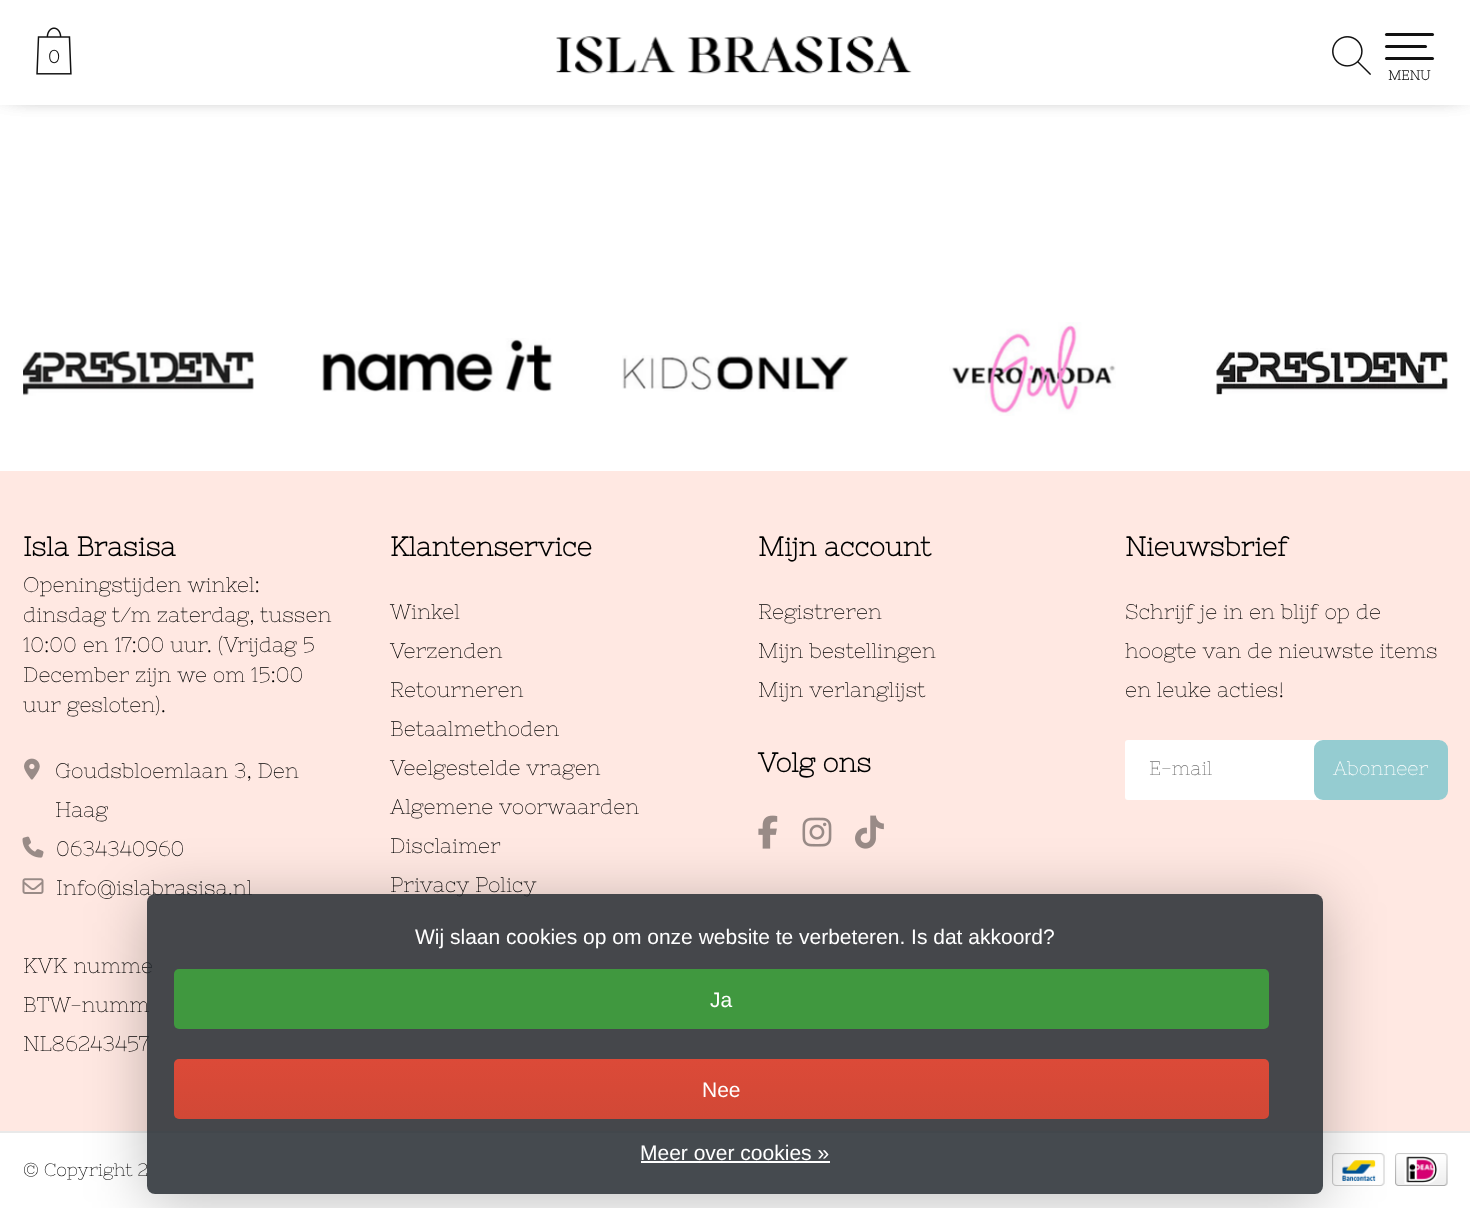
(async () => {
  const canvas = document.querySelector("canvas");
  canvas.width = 1470;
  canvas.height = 1208;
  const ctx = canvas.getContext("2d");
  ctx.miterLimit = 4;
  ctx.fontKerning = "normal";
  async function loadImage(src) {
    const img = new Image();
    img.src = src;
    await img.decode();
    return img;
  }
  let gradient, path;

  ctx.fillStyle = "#ffffff";
  ctx.fillRect(0, 0, 1470, 1208);
  ctx.fillStyle = "#000000";
  ctx.filter = "blur(15px)";
  ctx.beginPath();
  ctx.rect(9, 9, 1452, 72);
  ctx.fill();
  ctx.filter = "none";
  ctx.filter = "blur(15px)";
  ctx.beginPath();
  ctx.rect(9, 9, 1452, 72);
  ctx.fill();
  ctx.filter = "none";
  ctx.fillStyle = "#ffffff";
  ctx.fillRect(0, 0, 1470, 105);
  ctx.drawImage(await loadImage("img/1.png"), 556, 36, 356, 38);
  ctx.drawImage(await loadImage("img/2.png"), 36, 27, 36, 48);
  ctx.drawImage(await loadImage("img/3.png"), 1332, 36, 39, 39);
  ctx.fillStyle = "#111111";
  ctx.beginPath();
  ctx.roundRect(1385, 33, 49, 3, 1.5);
  ctx.fill();
  ctx.beginPath();
  ctx.roundRect(1385, 45, 42, 3, 1.5);
  ctx.fill();
  ctx.beginPath();
  ctx.roundRect(1385, 57, 49, 3, 1.5);
  ctx.fill();
  ctx.drawImage(await loadImage("img/4.png"), 23, 350, 231, 46);
  ctx.drawImage(await loadImage("img/5.png"), 322, 338, 231, 54);
  ctx.drawImage(await loadImage("img/6.png"), 622, 355, 227, 37);
  ctx.drawImage(await loadImage("img/7.png"), 949, 322, 167, 94);
  ctx.drawImage(await loadImage("img/8.png"), 1216, 348, 232, 47);
  ctx.fillStyle = "#ffe8e2";
  ctx.fillRect(0, 471, 1470, 660);
  ctx.drawImage(await loadImage("img/9.png"), 24, 758, 16, 22);
  ctx.drawImage(await loadImage("img/10.png"), 22, 836, 22, 22);
  ctx.drawImage(await loadImage("img/11.png"), 22, 878, 22, 16);
  ctx.drawImage(await loadImage("img/12.png"), 758, 815, 20, 34);
  ctx.drawImage(await loadImage("img/13.png"), 802, 817, 30, 30);
  ctx.drawImage(await loadImage("img/14.png"), 855, 815, 29, 34);
  ctx.fillStyle = "#ffffff";
  ctx.beginPath();
  ctx.roundRect(1126, 741, 315, 58, 2);
  ctx.fill();
  ctx.strokeStyle = "#ffffff";
  ctx.lineWidth = 2;
  ctx.stroke();
  ctx.fillStyle = "#95ccd1";
  ctx.beginPath();
  ctx.roundRect(1315, 741, 132, 58, 8);
  ctx.fill();
  ctx.strokeStyle = "#95ccd1";
  ctx.stroke();
  ctx.fillStyle = "#e9e9e9";
  ctx.fillRect(0, 1131, 1470, 2);
  ctx.drawImage(await loadImage("img/15.png"), 1332, 1153, 53, 33);
  ctx.drawImage(await loadImage("img/16.png"), 1395, 1153, 53, 33);
  ctx.save();
  path = new Path2D("M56 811H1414V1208H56ZM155 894H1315C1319.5 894 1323 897.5 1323 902V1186C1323 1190.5 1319.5 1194 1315 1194H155C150.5 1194 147 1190.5 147 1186V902C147 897.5 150.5 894 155 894Z");
  ctx.clip(path, "evenodd");
  ctx.fillStyle = "rgba(0, 0, 0, 0.25)";
  ctx.filter = "blur(30px)";
  ctx.beginPath();
  ctx.roundRect(147, 902, 1176, 300, 8);
  ctx.fill();
  ctx.filter = "none";
  ctx.restore();
  ctx.font = "bold 18px Nixie One";
  ctx.fillStyle = "#111111";
  ctx.fillText("0", 48, 63);
  ctx.font = "bold 13.5px Nixie One";
  ctx.fillText("MENU", 1388, 80);
  ctx.font = "bold 27px Nixie One";
  ctx.fillStyle = "#000000";
  ctx.fillText("Isla Brasisa", 23, 556);
  ctx.font = "21px Nixie One";
  for (const [text, x, y] of [
    ["Openingstijden winkel:", 23, 592],
    ["dinsdag t/m zaterdag, tussen", 23, 622],
    ["10:00 en 17:00 uur. (Vrijdag 5", 23, 652],
    ["December zijn we om 15:00", 23, 682],
    ["uur gesloten).", 23, 712],
    ["Goudsbloemlaan 3, Den", 55, 778],
    ["Haag", 55, 817],
    ["0634340960", 56, 856],
    ["Info@islabrasisa.nl", 56, 895],
    ["KVK numme", 23, 973],
    ["BTW-numm", 23, 1012],
    ["NL86243457", 23, 1051],
  ]) {
    ctx.fillText(text, x, y);
  }
  ctx.font = "bold 27px Nixie One";
  ctx.fillText("Klantenservice", 390, 556);
  ctx.font = "21px Nixie One";
  for (const [text, x, y] of [
    ["Winkel", 390, 619],
    ["Verzenden", 390, 658],
    ["Retourneren", 390, 697],
    ["Betaalmethoden", 390, 736],
    ["Veelgestelde vragen", 390, 775],
    ["Algemene voorwaarden", 390, 814],
    ["Disclaimer", 390, 853],
    ["Privacy Policy", 390, 892],
  ]) {
    ctx.fillText(text, x, y);
  }
  ctx.font = "bold 27px Nixie One";
  ctx.fillText("Mijn account", 758, 556);
  ctx.font = "21px Nixie One";
  for (const [text, x, y] of [
    ["Registreren", 758, 619],
    ["Mijn bestellingen", 758, 658],
    ["Mijn verlanglijst", 758, 697],
  ]) {
    ctx.fillText(text, x, y);
  }
  ctx.font = "bold 27px Nixie One";
  ctx.fillText("Volg ons", 758, 772);
  ctx.fillText("Nieuwsbrief", 1125, 556);
  ctx.font = "21px Nixie One";
  for (const [text, x, y] of [
    ["Schrijf je in en blijf op de", 1125, 619],
    ["hoogte van de nieuwste items", 1125, 658],
    ["en leuke acties!", 1125, 697],
  ]) {
    ctx.fillText(text, x, y);
  }
  ctx.font = "19.5px Nixie One";
  ctx.fillStyle = "#757575";
  ctx.fillText("E-mail", 1149, 775);
  ctx.fillStyle = "#ffffff";
  ctx.fillText("Abonneer", 1333, 775);
  ctx.fillStyle = "rgba(36, 42, 48, 0.85)";
  ctx.beginPath();
  ctx.roundRect(147, 894, 1176, 300, 8);
  ctx.fill();
  ctx.font = "21px Liberation Sans";
  ctx.fillStyle = "#ffffff";
  ctx.fillText("Wij slaan cookies op om onze website te verbeteren. Is dat akkoord?", 415, 944);
  ctx.fillStyle = "#40983f";
  ctx.beginPath();
  ctx.roundRect(174, 969, 1095, 60, 5);
  ctx.fill();
  ctx.fillStyle = "#ffffff";
  ctx.fillText("Ja", 710, 1007);
  gradient = ctx.createLinearGradient(722, 1059, 722, 1119);
  gradient.addColorStop(0, "#dc4a38");
  gradient.addColorStop(1, "#d14836");
  ctx.fillStyle = gradient;
  ctx.beginPath();
  ctx.roundRect(174, 1059, 1095, 60, 5);
  ctx.fill();
  ctx.fillStyle = "#ffffff";
  ctx.fillText("Nee", 702, 1097);
  ctx.fillText("Meer over cookies »", 640, 1160);
  ctx.fillRect(641, 1161, 189, 2);
  ctx.font = "18px Nixie One";
  ctx.fillStyle = "#000000";
  ctx.fillText("© Copyright 2", 23, 1176);
})();
